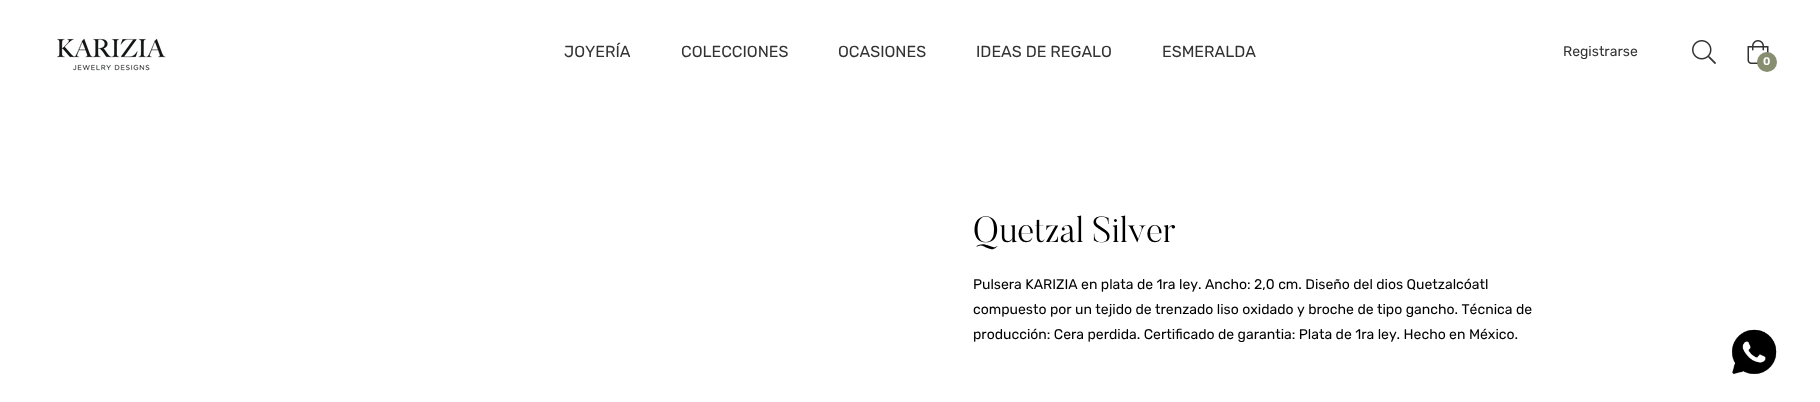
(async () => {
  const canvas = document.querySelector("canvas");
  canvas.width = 1820;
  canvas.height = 402;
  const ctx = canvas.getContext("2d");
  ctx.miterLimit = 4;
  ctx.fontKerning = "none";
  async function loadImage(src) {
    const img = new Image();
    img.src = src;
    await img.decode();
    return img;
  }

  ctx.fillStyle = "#ffffff";
  ctx.fillRect(0, 0, 1820, 402);
  ctx.fillStyle = "rgba(0, 0, 0, 0.2)";
  ctx.filter = "blur(0.5px)";
  ctx.beginPath();
  ctx.rect(0, 0, 1820, 105);
  ctx.fill();
  ctx.filter = "none";
  ctx.fillStyle = "#ffffff";
  ctx.fillRect(0, 0, 1820, 105);
  ctx.drawImage(await loadImage("img/1.png"), 57, 38, 109, 33);
  ctx.drawImage(await loadImage("img/2.png"), 1692, 40, 24, 24);
  ctx.drawImage(await loadImage("img/3.png"), 1747, 40, 22, 24);
  ctx.fillStyle = "#888f70";
  ctx.beginPath();
  ctx.arc(1767, 62, 10, 0, Math.PI * 2);
  ctx.fill();
  ctx.drawImage(await loadImage("img/4.png"), 1732, 329, 45, 45);
  ctx.font = "16px Rubik";
  ctx.fillStyle = "#333333";
  for (const [text, x, y] of [
    ["JOYERÍA", 564, 57],
    ["COLECCIONES", 681, 57],
    ["OCASIONES", 838, 57],
    ["IDEAS DE REGALO", 976, 57],
    ["ESMERALDA", 1162, 57],
  ]) {
    ctx.fillText(text, x, y);
  }
  ctx.font = "14px Rubik";
  ctx.fillText("Registrarse", 1563, 56);
  ctx.font = "600 11px Rubik";
  ctx.fillStyle = "#ffffff";
  ctx.fillText("0", 1763, 65);
  ctx.font = "300 36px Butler";
  ctx.fillStyle = "#000000";
  ctx.fillText("Quetzal Silver", 973, 242);
  ctx.font = "14px Rubik";
  for (const [text, x, y] of [
    ["Pulsera KARIZIA en plata de 1ra ley. Ancho: 2,0 cm. Diseño del dios Quetzalcóatl", 973, 289],
    ["compuesto por un tejido de trenzado liso oxidado y broche de tipo gancho. Técnica", 973, 314],
    ["de", 1516, 314],
    ["producción: Cera perdida. Certificado de garantia: Plata de 1ra ley. Hecho en México.", 973, 339],
  ]) {
    ctx.fillText(text, x, y);
  }
})();
